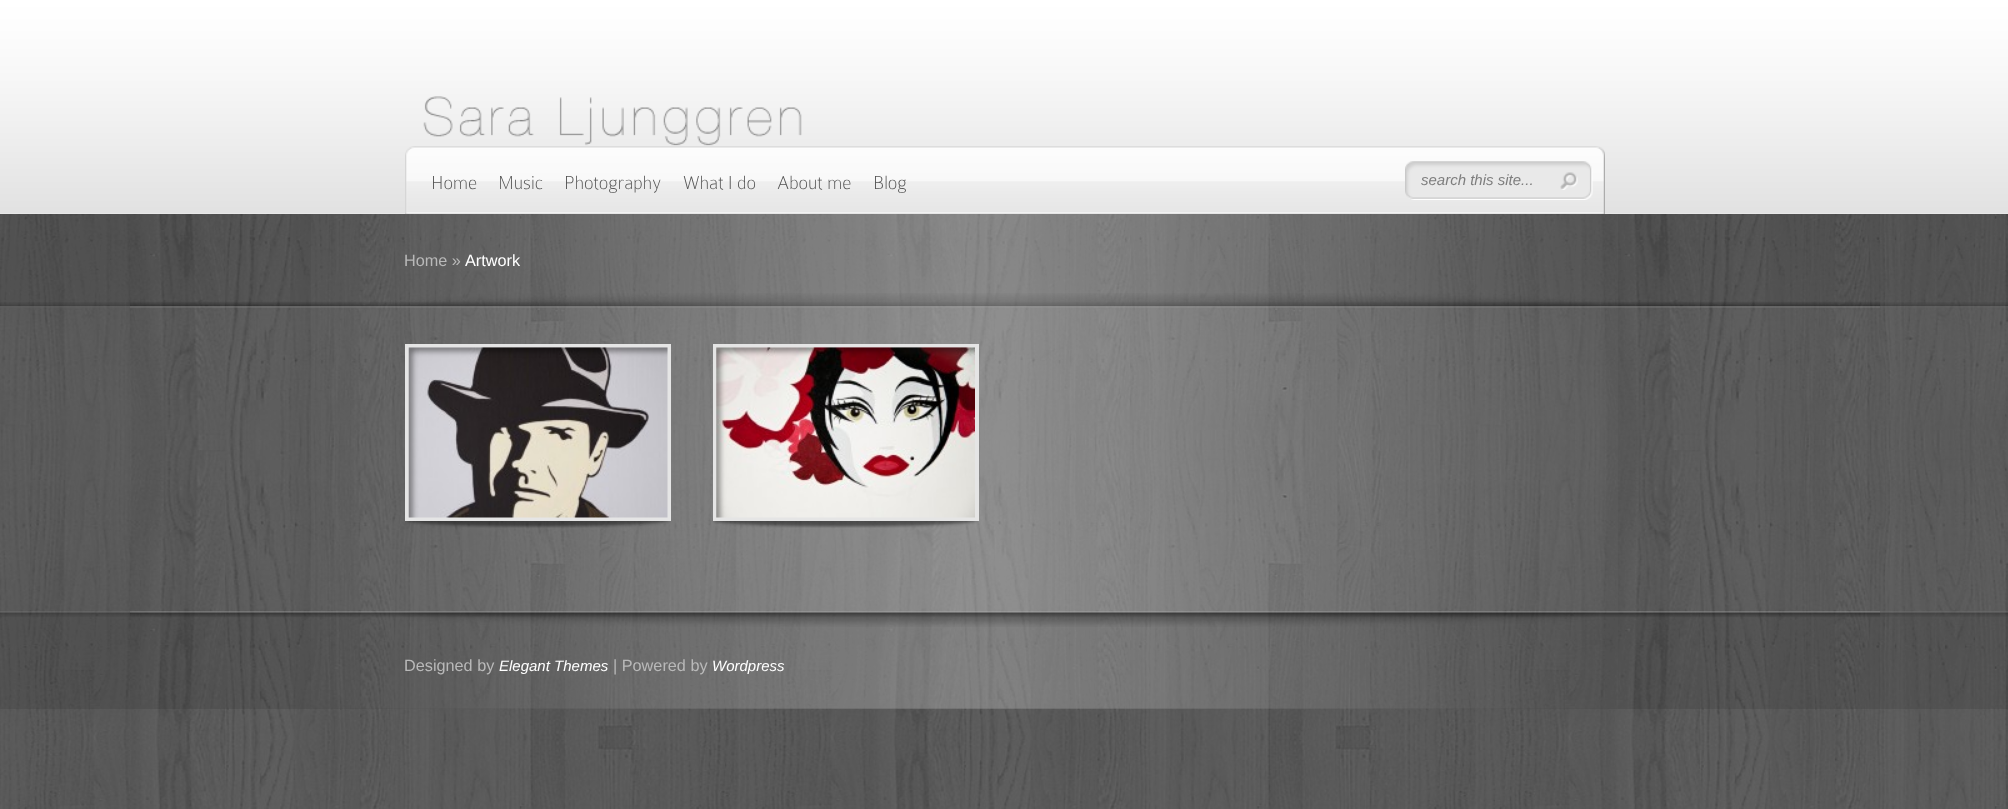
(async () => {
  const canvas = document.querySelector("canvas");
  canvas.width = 2008;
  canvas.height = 809;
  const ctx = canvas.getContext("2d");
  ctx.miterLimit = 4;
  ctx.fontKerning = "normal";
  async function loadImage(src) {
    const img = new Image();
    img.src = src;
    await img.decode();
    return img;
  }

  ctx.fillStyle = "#ffffff";
  ctx.fillRect(0, 0, 2008, 809);
  ctx.drawImage(await loadImage("img/1.png"), 0, 214, 2008, 595);
  ctx.drawImage(await loadImage("img/2.png"), 0, 0, 2008, 213);
  ctx.drawImage(await loadImage("img/3.png"), 423, 96, 379, 50);
  ctx.drawImage(await loadImage("img/4.png"), 405, 146, 1200, 68);
  ctx.drawImage(await loadImage("img/5.png"), 1405, 161, 188, 39);
  ctx.drawImage(await loadImage("img/6.png"), 1560, 172, 18, 18);
  ctx.drawImage(await loadImage("img/7.png"), 0, 302, 2008, 6);
  ctx.drawImage(await loadImage("img/8.png"), 130, 293, 1750, 15);
  ctx.fillStyle = "rgba(0, 0, 0, 0.09)";
  ctx.fillRect(0, 213, 2008, 95);
  ctx.drawImage(await loadImage("img/9.png"), 311, 214, 1307, 94);
  ctx.drawImage(await loadImage("img/10.png"), 311, 307, 1307, 402);
  ctx.drawImage(await loadImage("img/11.png"), 405, 521, 266, 7);
  ctx.strokeStyle = "#e5e5e5";
  ctx.lineWidth = 4;
  ctx.strokeRect(407, 346, 262, 173);
  ctx.drawImage(await loadImage("img/12.png"), 408, 347, 260, 171);
  ctx.drawImage(await loadImage("img/13.png"), 408, 347, 260, 171);
  ctx.drawImage(await loadImage("img/14.png"), 712, 518, 266, 10);
  ctx.strokeRect(715, 346, 262, 173);
  ctx.drawImage(await loadImage("img/15.png"), 716, 347, 259, 171);
  ctx.drawImage(await loadImage("img/16.png"), 716, 347, 259, 171);
  ctx.fillRect(0, 611, 2008, 98);
  ctx.drawImage(await loadImage("img/17.png"), 0, 611, 2008, 6);
  ctx.drawImage(await loadImage("img/18.png"), 130, 611, 1750, 16);
  ctx.font = "100 20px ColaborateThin";
  ctx.fillStyle = "#535353";
  for (const [text, x, y] of [
    ["Home", 431, 189],
    ["Music", 498, 189],
    ["Photography", 564, 189],
    ["What I do", 683, 189],
    ["About me", 777, 189],
    ["Blog", 873, 189],
  ]) {
    ctx.fillText(text, x, y);
  }
  ctx.font = "italic 15px Liberation Sans";
  ctx.fillStyle = "#7d7d7d";
  ctx.fillText("search this site...", 1421, 185);
  ctx.font = "16.25px Liberation Sans";
  ctx.fillStyle = "#b9b9b9";
  ctx.fillText("Home »", 404, 266);
  ctx.fillStyle = "#ffffff";
  ctx.fillText("Artwork", 465, 266);
  ctx.fillStyle = "#b9b9b9";
  ctx.fillText("Designed by", 404, 671);
  ctx.font = "italic 15px Liberation Sans";
  ctx.fillStyle = "#ffffff";
  ctx.fillText("Elegant Themes", 499, 671);
  ctx.font = "16.25px Liberation Sans";
  ctx.fillStyle = "#b9b9b9";
  ctx.fillText("| Powered by", 613, 671);
  ctx.font = "italic 15px Liberation Sans";
  ctx.fillStyle = "#ffffff";
  ctx.fillText("Wordpress", 712, 671);
})();
